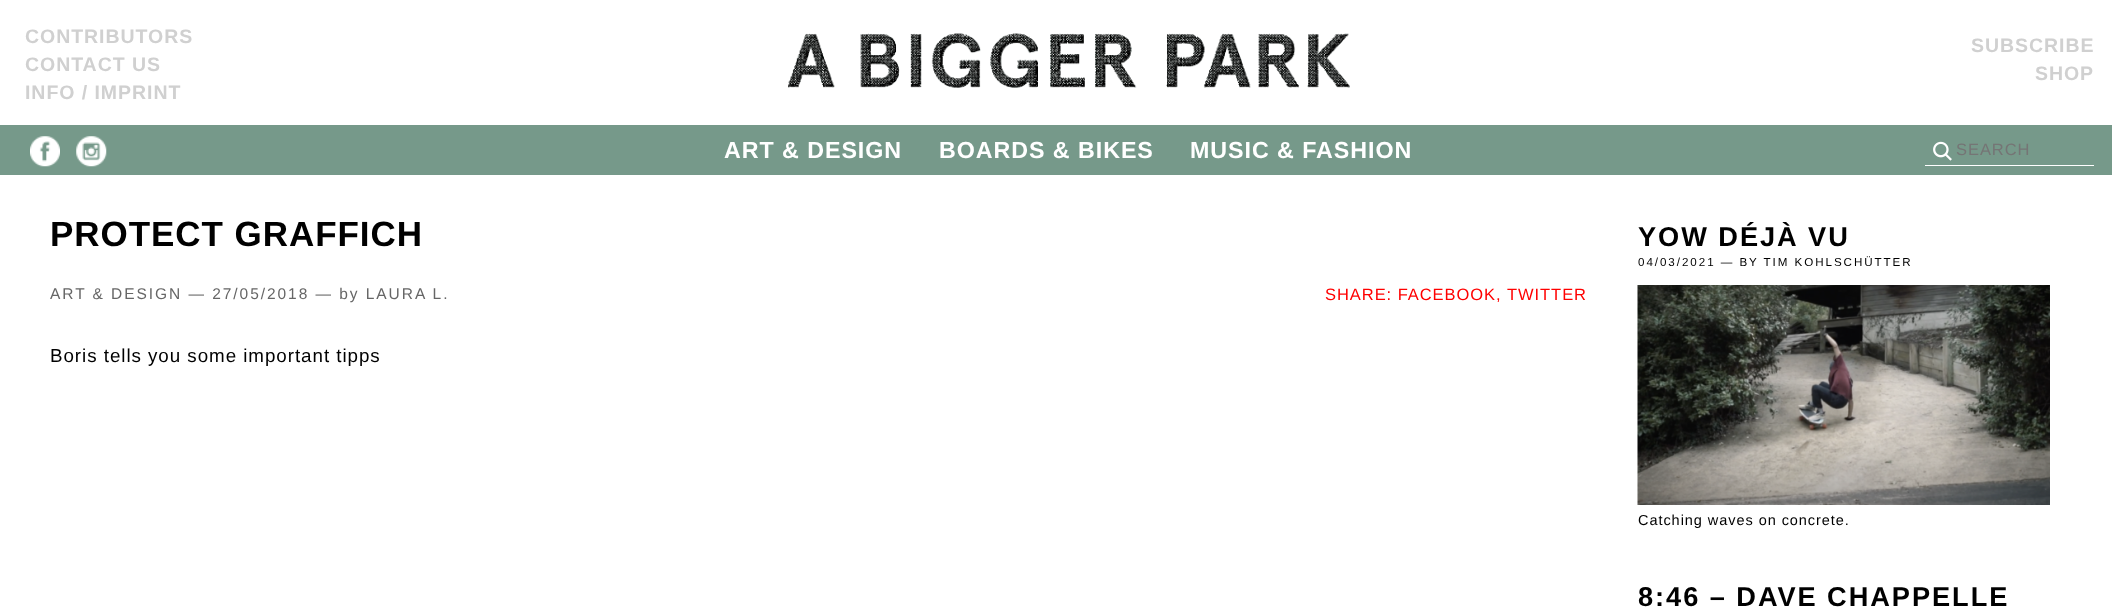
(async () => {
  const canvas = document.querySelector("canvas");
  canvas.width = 2112;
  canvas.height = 614;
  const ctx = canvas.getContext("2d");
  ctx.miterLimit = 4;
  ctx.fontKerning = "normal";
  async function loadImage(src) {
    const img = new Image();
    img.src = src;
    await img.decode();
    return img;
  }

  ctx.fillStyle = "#ffffff";
  ctx.fillRect(0, 0, 2112, 614);
  ctx.drawImage(await loadImage("img/1.png"), 788, 33, 562, 55);
  ctx.fillStyle = "#76998a";
  ctx.fillRect(0, 125, 2112, 50);
  ctx.drawImage(await loadImage("img/2.png"), 30, 136, 30, 31);
  ctx.drawImage(await loadImage("img/3.png"), 76, 136, 31, 31);
  ctx.drawImage(await loadImage("img/4.png"), 1933, 141, 19, 20);
  ctx.fillStyle = "#ffffff";
  ctx.fillRect(1925, 165, 169, 1);
  ctx.drawImage(await loadImage("img/5.png"), 1637, 285, 413, 220);
  ctx.letterSpacing = "0.95px";
  ctx.font = "bold 19.5px Liberation Sans";
  ctx.fillStyle = "#d0d0d0";
  for (const [text, x, y] of [
    ["CONTRIBUTORS", 25, 43],
    ["CONTACT US", 25, 71],
    ["INFO / IMPRINT", 25, 99],
    ["SUBSCRIBE", 1971, 52],
    ["SHOP", 2035, 80],
  ]) {
    ctx.fillText(text, x, y);
  }
  ctx.font = "bold 23.25px Liberation Sans";
  ctx.fillStyle = "#ffffff";
  for (const [text, x, y] of [
    ["ART & DESIGN", 724, 158],
    ["BOARDS & BIKES", 939, 158],
    ["MUSIC & FASHION", 1190, 158],
  ]) {
    ctx.fillText(text, x, y);
  }
  ctx.font = "16.5px Liberation Sans";
  ctx.fillStyle = "#757575";
  ctx.fillText("SEARCH", 1956, 155);
  ctx.font = "bold 35px Liberation Sans";
  ctx.fillStyle = "#000000";
  ctx.fillText("PROTECT GRAFFICH", 50, 246);
  ctx.letterSpacing = "1.95px";
  ctx.font = "15.5px Liberation Sans";
  ctx.fillStyle = "#666666";
  ctx.fillText("ART & DESIGN — 27/05/2018 — by LAURA L.", 50, 299);
  ctx.letterSpacing = "0.95px";
  ctx.font = "16.5px Liberation Sans";
  ctx.fillStyle = "#ff0000";
  ctx.fillText("SHARE: FACEBOOK,", 1325, 300);
  ctx.fillText("TWITTER", 1507, 300);
  ctx.font = "18.8px Liberation Sans";
  ctx.fillStyle = "#000000";
  ctx.fillText("Boris tells you some important tipps", 50, 362);
  ctx.letterSpacing = "1.95px";
  ctx.font = "bold 27.2px Liberation Sans";
  ctx.fillText("YOW DÉJÀ VU", 1638, 246);
  ctx.font = "11.6px Liberation Sans";
  ctx.fillText("04/03/2021 — BY TIM KOHLSCHÜTTER", 1638, 266);
  ctx.letterSpacing = "0.95px";
  ctx.font = "14.5px Liberation Sans";
  ctx.fillText("Catching waves on concrete.", 1638, 525);
  ctx.letterSpacing = "1.95px";
  ctx.font = "bold 27.2px Liberation Sans";
  ctx.fillText("8:46 – DAVE CHAPPELLE", 1638, 606);
})();
